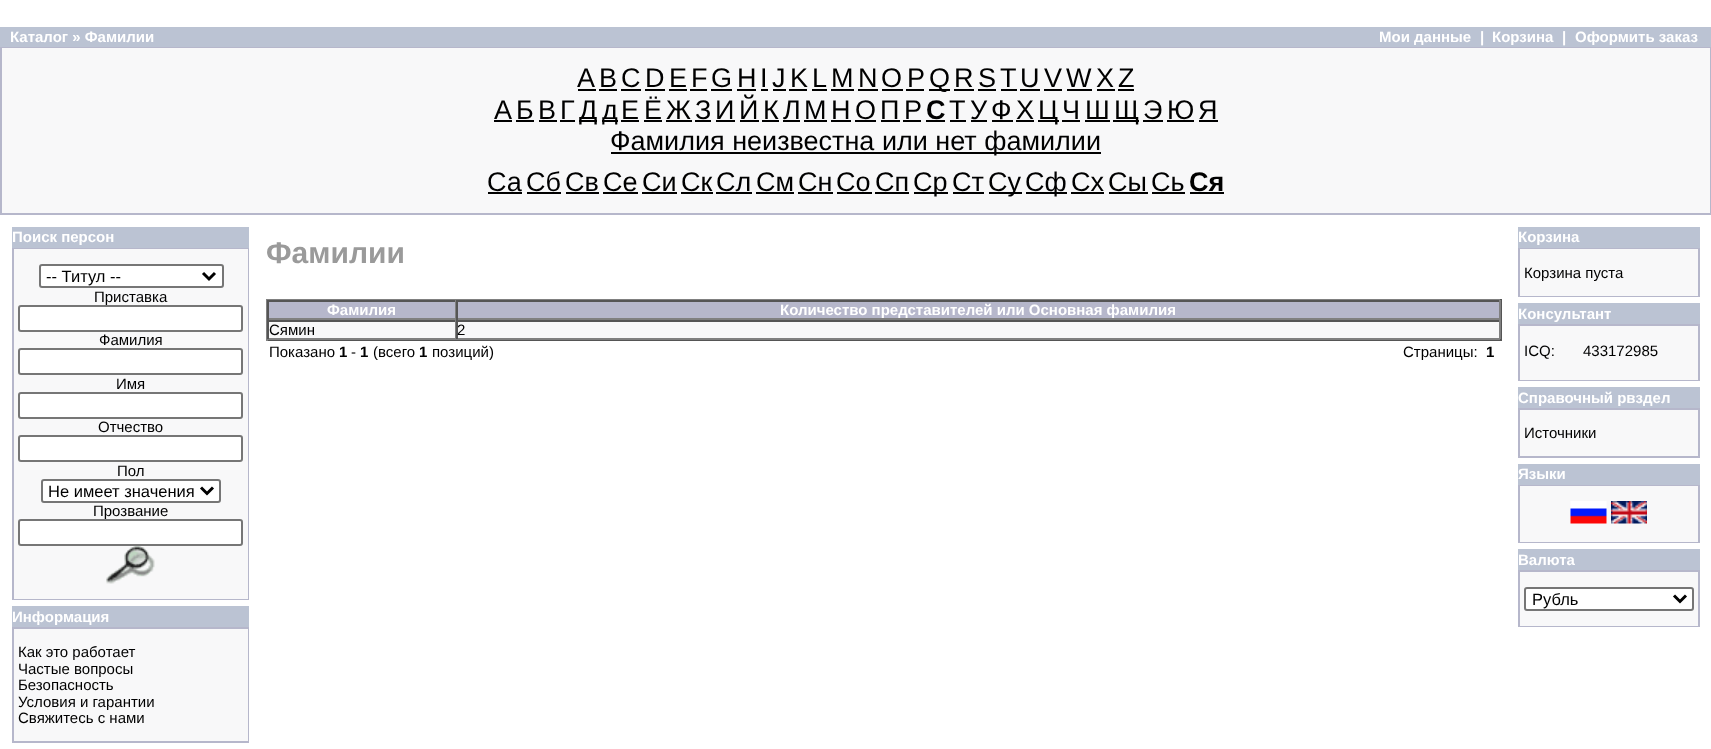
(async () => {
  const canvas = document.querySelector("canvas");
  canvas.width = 1711;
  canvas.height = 749;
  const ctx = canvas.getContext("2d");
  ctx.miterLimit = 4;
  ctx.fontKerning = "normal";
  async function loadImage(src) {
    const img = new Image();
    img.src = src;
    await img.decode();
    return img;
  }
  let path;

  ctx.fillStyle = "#ffffff";
  ctx.fillRect(0, 0, 1711, 749);
  for (const [x, y, w, h, color] of [
    [0, 27, 1711, 20, "#bbc3d3"],
    [0, 47, 1711, 168, "#b6b7cb"],
    [2, 48, 1708, 165, "#f8f8f9"],
    [578, 89, 18, 2, "#000000"],
    [599, 89, 18, 2, "#000000"],
    [621, 89, 20, 2, "#000000"],
    [645, 89, 20, 2, "#000000"],
    [669, 89, 18, 2, "#000000"],
    [690, 89, 17, 2, "#000000"],
    [711, 89, 21, 2, "#000000"],
    [737, 89, 19, 2, "#000000"],
    [761, 89, 7, 2, "#000000"],
    [773, 89, 13, 2, "#000000"],
    [789, 89, 18, 2, "#000000"],
    [812, 89, 15, 2, "#000000"],
    [831, 89, 23, 2, "#000000"],
    [858, 89, 20, 2, "#000000"],
    [882, 89, 21, 2, "#000000"],
    [906, 89, 18, 2, "#000000"],
    [929, 89, 21, 2, "#000000"],
    [954, 89, 20, 2, "#000000"],
    [978, 89, 18, 2, "#000000"],
    [1001, 89, 16, 2, "#000000"],
    [1020, 89, 20, 2, "#000000"],
    [1044, 89, 18, 2, "#000000"],
    [1067, 89, 25, 2, "#000000"],
    [1097, 89, 18, 2, "#000000"],
    [1118, 89, 16, 2, "#000000"],
    [494, 120, 18, 2, "#000000"],
    [516, 120, 18, 2, "#000000"],
    [539, 120, 18, 2, "#000000"],
    [560, 120, 15, 2, "#000000"],
    [579, 120, 18, 2, "#000000"],
    [602, 120, 16, 2, "#000000"],
    [621, 120, 18, 2, "#000000"],
    [644, 120, 18, 2, "#000000"],
    [666, 120, 26, 2, "#000000"],
    [695, 120, 16, 2, "#000000"],
    [716, 120, 19, 2, "#000000"],
    [740, 120, 19, 2, "#000000"],
    [762, 120, 17, 2, "#000000"],
    [783, 120, 17, 2, "#000000"],
    [804, 120, 23, 2, "#000000"],
    [831, 120, 20, 2, "#000000"],
    [855, 120, 21, 2, "#000000"],
    [881, 120, 19, 2, "#000000"],
    [903, 120, 18, 2, "#000000"],
    [926, 120, 19, 2, "#000000"],
    [950, 120, 16, 2, "#000000"],
    [971, 120, 16, 2, "#000000"],
    [992, 120, 21, 2, "#000000"],
    [1016, 120, 18, 2, "#000000"],
    [1038, 120, 21, 2, "#000000"],
    [1062, 120, 18, 2, "#000000"],
    [1085, 120, 25, 2, "#000000"],
    [1113, 120, 26, 2, "#000000"],
    [1143, 120, 20, 2, "#000000"],
    [1167, 120, 27, 2, "#000000"],
    [1199, 120, 19, 2, "#000000"],
    [611, 152, 490, 2, "#000000"],
    [488, 192, 34, 2, "#000000"],
    [527, 192, 34, 2, "#000000"],
    [566, 192, 33, 2, "#000000"],
    [603, 192, 35, 2, "#000000"],
    [642, 192, 35, 2, "#000000"],
    [681, 192, 32, 2, "#000000"],
    [716, 192, 36, 2, "#000000"],
    [756, 192, 38, 2, "#000000"],
    [798, 192, 35, 2, "#000000"],
    [837, 192, 35, 2, "#000000"],
    [875, 192, 34, 2, "#000000"],
    [914, 192, 34, 2, "#000000"],
    [953, 192, 31, 2, "#000000"],
    [989, 192, 33, 2, "#000000"],
    [1026, 192, 41, 2, "#000000"],
    [1071, 192, 33, 2, "#000000"],
    [1109, 192, 39, 2, "#000000"],
    [1152, 192, 33, 2, "#000000"],
    [1190, 192, 34, 2, "#000000"],
    [12, 227, 237, 21, "#bbc3d3"],
    [12, 248, 237, 352, "#b6b7cb"],
    [14, 249, 234, 350, "#f8f8f9"],
  ]) {
    ctx.fillStyle = color;
    ctx.fillRect(x, y, w, h);
  }
  ctx.fillStyle = "#ffffff";
  ctx.beginPath();
  ctx.roundRect(40, 265, 183, 22, 2);
  ctx.fill();
  ctx.strokeStyle = "#767676";
  ctx.lineWidth = 2;
  ctx.stroke();
  path = new Path2D("M203 273L209 279L215 273");
  ctx.strokeStyle = "#000000";
  ctx.lineWidth = 3;
  ctx.stroke(path);
  ctx.beginPath();
  ctx.roundRect(19, 349, 223, 25, 2);
  ctx.fill();
  ctx.strokeStyle = "#767676";
  ctx.lineWidth = 2;
  ctx.stroke();
  ctx.beginPath();
  ctx.roundRect(19, 393, 223, 25, 2);
  ctx.fill();
  ctx.stroke();
  ctx.beginPath();
  ctx.roundRect(19, 436, 223, 25, 2);
  ctx.fill();
  ctx.stroke();
  ctx.beginPath();
  ctx.roundRect(42, 480, 178, 22, 2);
  ctx.fill();
  ctx.stroke();
  path = new Path2D("M201 487.5L207 493.5L213 487.5");
  ctx.strokeStyle = "#000000";
  ctx.lineWidth = 3;
  ctx.stroke(path);
  ctx.drawImage(await loadImage("img/1.png"), 106, 546, 49, 38);
  for (const [x, y, w, h, color] of [
    [12, 606, 237, 21, "#bbc3d3"],
    [12, 627, 237, 116, "#b6b7cb"],
    [14, 629, 234, 112, "#f8f8f9"],
    [266, 299, 1236, 1, "#808080"],
    [1500, 299, 2, 42, "#555555"],
    [266, 339, 1236, 2, "#555555"],
    [266, 299, 2, 42, "#808080"],
    [269, 302, 186, 16, "#b6b7cb"],
    [267, 300, 1233, 2, "#555555"],
    [455, 300, 1, 20, "#808080"],
    [267, 318, 189, 2, "#808080"],
    [267, 300, 2, 20, "#555555"],
    [458, 302, 1041, 16, "#b6b7cb"],
    [1499, 300, 2, 20, "#808080"],
    [456, 318, 1044, 2, "#808080"],
    [456, 300, 2, 20, "#555555"],
    [269, 322, 1230, 16, "#f8f8f9"],
    [267, 320, 1233, 2, "#555555"],
    [455, 320, 1, 19, "#808080"],
    [267, 338, 189, 2, "#808080"],
    [267, 320, 2, 19, "#555555"],
    [1499, 320, 2, 19, "#808080"],
    [456, 338, 1044, 2, "#808080"],
    [456, 320, 2, 19, "#555555"],
    [1518, 227, 182, 21, "#bbc3d3"],
    [1518, 248, 182, 49, "#b6b7cb"],
    [1520, 249, 178, 47, "#f8f8f9"],
    [1518, 303, 182, 21, "#bbc3d3"],
    [1518, 324, 182, 57, "#b6b7cb"],
    [1520, 326, 178, 54, "#f8f8f9"],
    [1518, 387, 182, 21, "#bbc3d3"],
    [1518, 408, 182, 50, "#b6b7cb"],
    [1520, 410, 178, 46, "#f8f8f9"],
    [1518, 464, 182, 21, "#bbc3d3"],
    [1518, 485, 182, 58, "#b6b7cb"],
    [1520, 486, 178, 56, "#f8f8f9"],
  ]) {
    ctx.fillStyle = color;
    ctx.fillRect(x, y, w, h);
  }
  ctx.drawImage(await loadImage("img/2.png"), 1570, 501, 37, 23);
  ctx.drawImage(await loadImage("img/3.png"), 1611, 501, 36, 23);
  for (const [x, y, w, h, color] of [
    [1518, 549, 182, 21, "#bbc3d3"],
    [1518, 570, 182, 57, "#b6b7cb"],
    [1520, 572, 178, 54, "#f8f8f9"],
  ]) {
    ctx.fillStyle = color;
    ctx.fillRect(x, y, w, h);
  }
  ctx.fillStyle = "#ffffff";
  ctx.beginPath();
  ctx.roundRect(1525, 588, 168, 22, 2);
  ctx.fill();
  ctx.strokeStyle = "#767676";
  ctx.lineWidth = 2;
  ctx.stroke();
  path = new Path2D("M1674 595.5L1680 601.5L1686 595.5");
  ctx.strokeStyle = "#000000";
  ctx.lineWidth = 3;
  ctx.stroke(path);
  ctx.font = "bold 15px Liberation Sans";
  for (const [text, x, y] of [
    ["Каталог » Фамилии", 10, 42],
    ["Мои данные", 1379, 42],
    ["|", 1480, 42],
    ["Корзина", 1492, 42],
    ["|", 1562, 42],
    ["Оформить заказ", 1575, 42],
  ]) {
    ctx.fillText(text, x, y);
  }
  ctx.font = "27px Liberation Sans";
  ctx.fillStyle = "#000000";
  for (const [text, x, y] of [
    ["A", 577, 87],
    ["B", 599, 87],
    ["C", 621, 87],
    ["D", 645, 87],
    ["E", 669, 87],
    ["F", 691, 87],
    ["G", 711, 87],
    ["H", 737, 87],
    ["I", 760, 87],
    ["J", 772, 87],
    ["K", 790, 87],
    ["L", 812, 87],
    ["M", 831, 87],
    ["N", 858, 87],
    ["O", 881, 87],
    ["P", 907, 87],
    ["Q", 929, 87],
    ["R", 954, 87],
    ["S", 978, 87],
    ["T", 1000, 87],
    ["U", 1020, 87],
    ["V", 1044, 87],
    ["W", 1066, 87],
    ["X", 1096, 87],
    ["Z", 1118, 87],
    ["А", 494, 119],
    ["Б", 516, 119],
    ["В", 538, 119],
    ["Г", 560, 119],
    ["Д", 579, 119],
    ["д", 602, 119],
    ["Е", 621, 119],
    ["Ё", 644, 119],
    ["Ж", 666, 119],
    ["З", 695, 119],
    ["И", 715, 119],
    ["Й", 739, 119],
    ["К", 763, 119],
    ["Л", 783, 119],
    ["М", 804, 119],
    ["Н", 831, 119],
    ["О", 855, 119],
    ["П", 880, 119],
    ["Р", 904, 119],
  ]) {
    ctx.fillText(text, x, y);
  }
  ctx.font = "bold 27px Liberation Sans";
  ctx.fillText("С", 926, 119);
  ctx.font = "27px Liberation Sans";
  for (const [text, x, y] of [
    ["Т", 949, 119],
    ["У", 970, 119],
    ["Ф", 991, 119],
    ["Х", 1016, 119],
    ["Ц", 1038, 119],
    ["Ч", 1062, 119],
    ["Ш", 1085, 119],
    ["Щ", 1114, 119],
    ["Э", 1143, 119],
    ["Ю", 1167, 119],
    ["Я", 1198, 119],
    ["Фамилия неизвестна или нет фамилии", 610, 150],
    ["Са", 487, 191],
    ["Сб", 526, 191],
    ["Св", 565, 191],
    ["Се", 603, 191],
    ["Си", 642, 191],
    ["Ск", 681, 191],
    ["Сл", 716, 191],
    ["См", 756, 191],
    ["Сн", 798, 191],
    ["Со", 836, 191],
    ["Сп", 875, 191],
    ["Ср", 913, 191],
    ["Ст", 952, 191],
    ["Су", 988, 191],
    ["Сф", 1025, 191],
    ["Сх", 1071, 191],
    ["Сы", 1108, 191],
    ["Сь", 1151, 191],
  ]) {
    ctx.fillText(text, x, y);
  }
  ctx.font = "bold 27px Liberation Sans";
  ctx.fillText("Ся", 1189, 191);
  ctx.font = "bold 15px Liberation Sans";
  ctx.fillStyle = "#ffffff";
  ctx.fillText("Поиск персон", 12, 242);
  ctx.font = "16.5px Liberation Sans";
  ctx.fillStyle = "#000000";
  ctx.fillText("-- Титул --", 46, 282);
  ctx.font = "15px Liberation Sans";
  ctx.fillText("Приставка", 94, 302);
  ctx.fillStyle = "#ffffff";
  ctx.beginPath();
  ctx.roundRect(19, 306, 223, 25, 2);
  ctx.fill();
  ctx.strokeStyle = "#767676";
  ctx.lineWidth = 2;
  ctx.stroke();
  ctx.fillStyle = "#000000";
  for (const [text, x, y] of [
    ["Фамилия", 99, 345],
    ["Имя", 116, 389],
    ["Отчество", 98, 432],
    ["Пол", 117, 476],
  ]) {
    ctx.fillText(text, x, y);
  }
  ctx.font = "16.5px Liberation Sans";
  ctx.fillText("Не имеет значения", 48, 497);
  ctx.font = "15px Liberation Sans";
  ctx.fillText("Прозвание", 93, 516);
  ctx.fillStyle = "#ffffff";
  ctx.beginPath();
  ctx.roundRect(19, 520, 223, 25, 2);
  ctx.fill();
  ctx.stroke();
  ctx.font = "bold 15px Liberation Sans";
  ctx.fillText("Информация", 12, 622);
  ctx.font = "15px Liberation Sans";
  ctx.fillStyle = "#000000";
  for (const [text, x, y] of [
    ["Как это работает", 18, 657],
    ["Частые вопросы", 18, 674],
    ["Безопасность", 18, 690],
    ["Условия и гарантии", 18, 707],
    ["Свяжитесь с нами", 18, 723],
  ]) {
    ctx.fillText(text, x, y);
  }
  ctx.font = "bold 30px Liberation Sans";
  ctx.fillStyle = "#9a9a9a";
  ctx.fillText("Фамилии", 266, 263);
  ctx.font = "bold 15px Liberation Sans";
  ctx.fillStyle = "#ffffff";
  ctx.fillText("Фамилия", 327, 315);
  ctx.fillText("Количество представителей или Основная фамилия", 780, 315);
  ctx.font = "15px Liberation Sans";
  ctx.fillStyle = "#000000";
  for (const [text, x, y] of [
    ["Сямин", 269, 335],
    ["2", 457, 335],
    ["Показано", 269, 357],
  ]) {
    ctx.fillText(text, x, y);
  }
  ctx.font = "bold 15px Liberation Sans";
  ctx.fillText("1", 339, 357);
  ctx.font = "15px Liberation Sans";
  ctx.fillText("-", 351, 357);
  ctx.font = "bold 15px Liberation Sans";
  ctx.fillText("1", 360, 357);
  ctx.font = "15px Liberation Sans";
  ctx.fillText("(всего", 373, 357);
  ctx.font = "bold 15px Liberation Sans";
  ctx.fillText("1", 419, 357);
  ctx.font = "15px Liberation Sans";
  ctx.fillText("позиций)", 432, 357);
  ctx.fillText("Страницы:", 1403, 357);
  ctx.font = "bold 15px Liberation Sans";
  ctx.fillText("1", 1486, 357);
  ctx.fillStyle = "#ffffff";
  ctx.fillText("Корзина", 1518, 242);
  ctx.font = "15px Liberation Sans";
  ctx.fillStyle = "#000000";
  ctx.fillText("Корзина пуста", 1524, 278);
  ctx.font = "bold 15px Liberation Sans";
  ctx.fillStyle = "#ffffff";
  ctx.fillText("Консультант", 1518, 319);
  ctx.font = "15px Liberation Sans";
  ctx.fillStyle = "#000000";
  ctx.fillText("ICQ:", 1524, 356);
  ctx.fillText("433172985", 1583, 356);
  ctx.font = "bold 15px Liberation Sans";
  ctx.fillStyle = "#ffffff";
  ctx.fillText("Справочный рвздел", 1518, 403);
  ctx.font = "15px Liberation Sans";
  ctx.fillStyle = "#000000";
  ctx.fillText("Источники", 1524, 438);
  ctx.font = "bold 15px Liberation Sans";
  ctx.fillStyle = "#ffffff";
  ctx.fillText("Языки", 1518, 479);
  ctx.fillText("Валюта", 1518, 565);
  ctx.font = "16.5px Liberation Sans";
  ctx.fillStyle = "#000000";
  ctx.fillText("Рубль", 1532, 605);
})();
